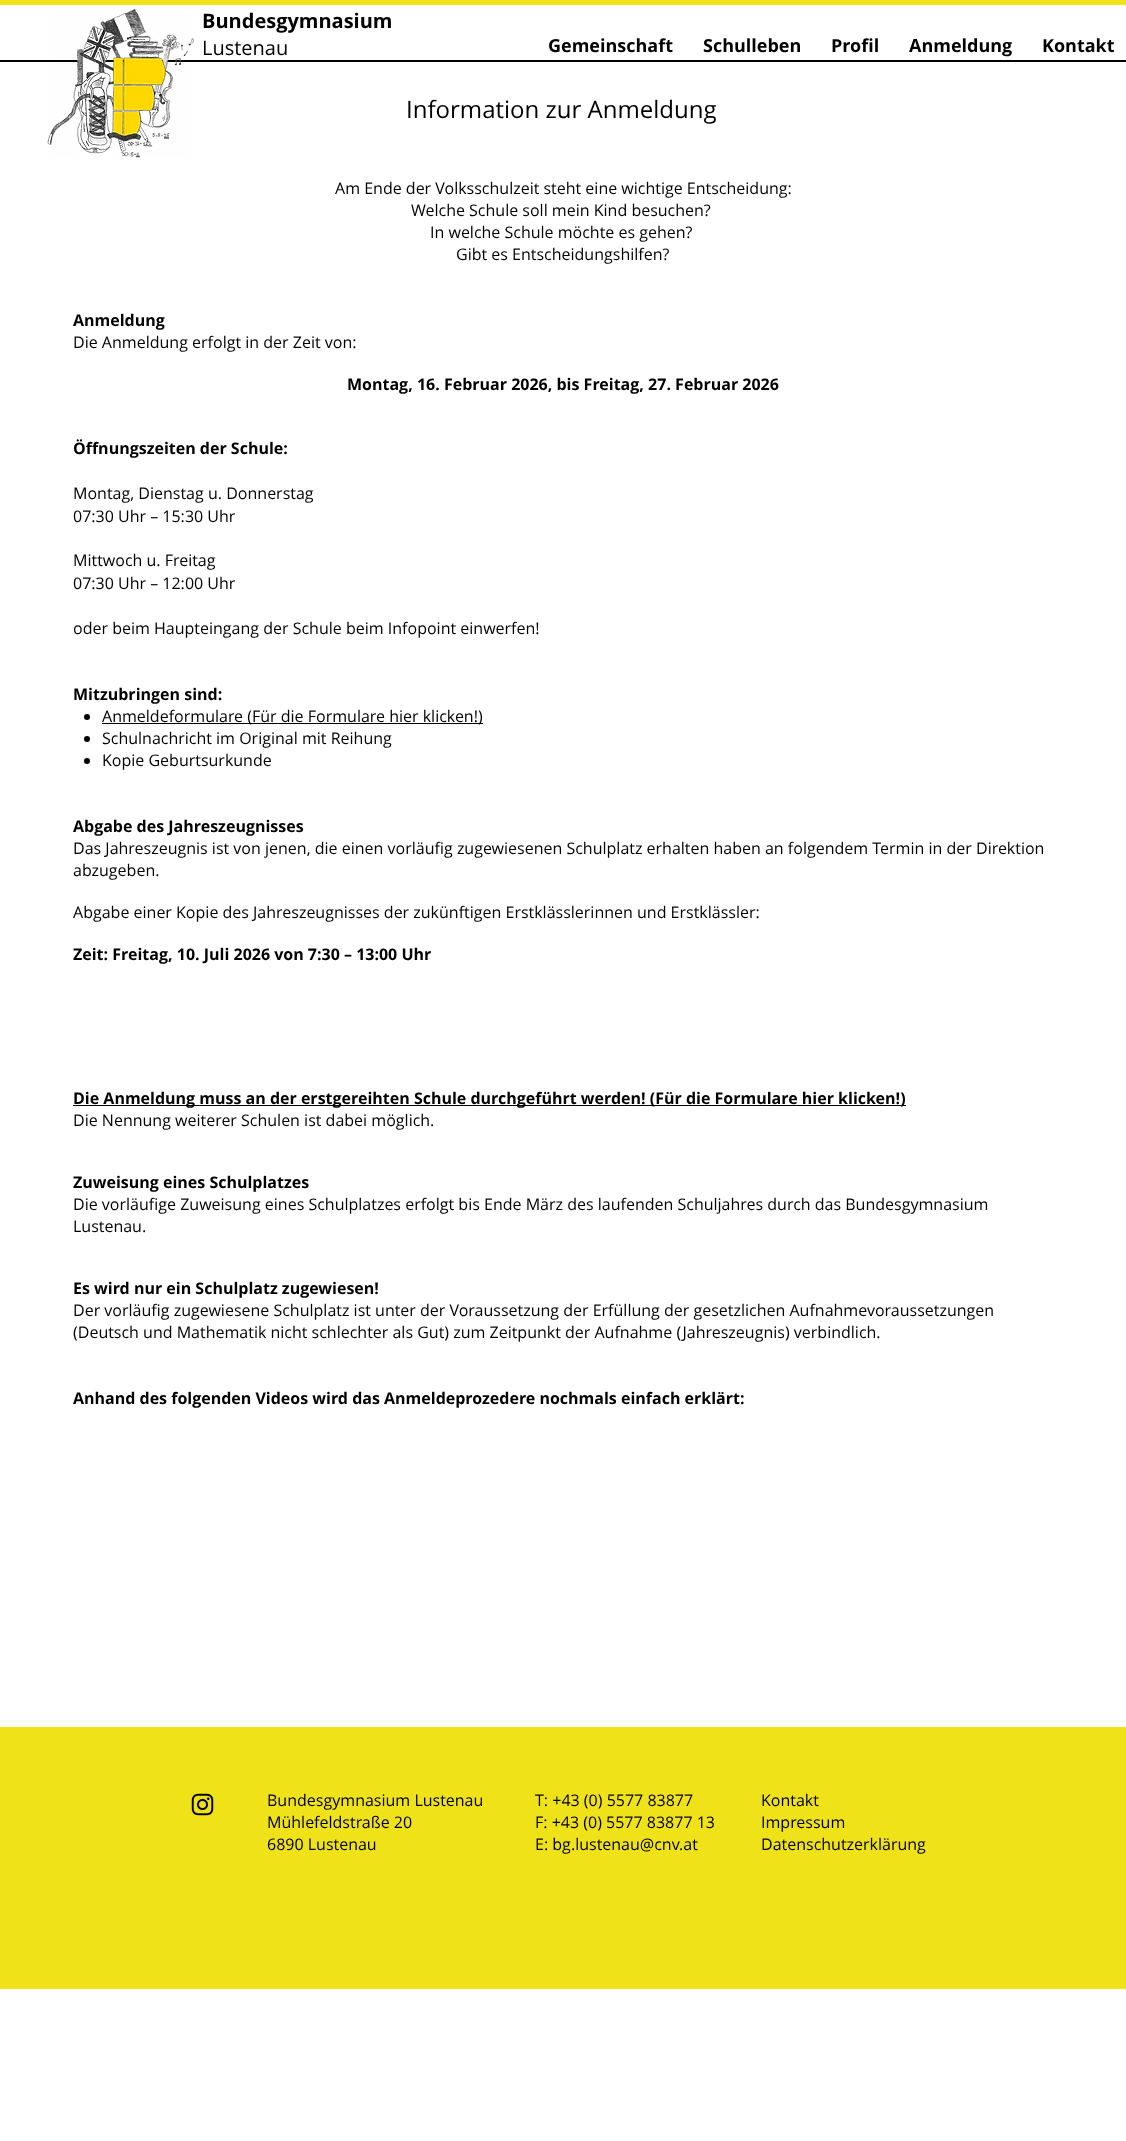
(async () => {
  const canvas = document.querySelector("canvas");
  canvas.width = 1126;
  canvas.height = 2141;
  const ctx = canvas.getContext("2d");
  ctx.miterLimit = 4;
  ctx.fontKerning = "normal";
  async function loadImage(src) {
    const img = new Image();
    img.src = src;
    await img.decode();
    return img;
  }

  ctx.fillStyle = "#ffffff";
  ctx.fillRect(0, 0, 1126, 2141);
  ctx.fillStyle = "#efe218";
  ctx.fillRect(0, 0, 1126, 5);
  ctx.fillStyle = "#000000";
  ctx.fillRect(0, 60, 1126, 2);
  ctx.drawImage(await loadImage("img/1.png"), 47, 9, 147, 149);
  ctx.beginPath();
  ctx.arc(87, 717, 3, 0, Math.PI * 2);
  ctx.fill();
  ctx.fillRect(102, 723, 381, 1);
  ctx.beginPath();
  ctx.arc(87, 739, 3, 0, Math.PI * 2);
  ctx.fill();
  ctx.beginPath();
  ctx.arc(87, 761, 3, 0, Math.PI * 2);
  ctx.fill();
  ctx.fillRect(73, 1105, 833, 1);
  ctx.fillStyle = "#efe218";
  ctx.fillRect(0, 1727, 1126, 262);
  ctx.drawImage(await loadImage("img/2.png"), 191, 1793, 23, 23);
  ctx.font = "bold 20px Open Sans";
  ctx.fillStyle = "#000000";
  ctx.fillText("Bundesgymnasium", 202, 28);
  ctx.font = "20px Open Sans";
  ctx.fillText("Lustenau", 202, 55);
  ctx.font = "bold 18px Open Sans";
  for (const [text, x, y] of [
    ["Gemeinschaft", 548, 52],
    ["Schulleben", 703, 52],
    ["Profil", 831, 52],
    ["Anmeldung", 909, 52],
    ["Kontakt", 1042, 52],
  ]) {
    ctx.fillText(text, x, y);
  }
  ctx.font = "24px Open Sans";
  ctx.fillText("Information zur Anmeldung", 406, 118);
  ctx.font = "16px Open Sans";
  for (const [text, x, y] of [
    ["Am Ende der Volksschulzeit steht eine wichtige Entscheidung:", 335, 194],
    ["Welche Schule soll mein Kind besuchen?", 411, 216],
    ["In welche Schule möchte es gehen?", 430, 238],
    ["Gibt es Entscheidungshilfen?", 456, 260],
  ]) {
    ctx.fillText(text, x, y);
  }
  ctx.font = "bold 16px Open Sans";
  ctx.fillText("Anmeldung", 73, 326);
  ctx.font = "16px Open Sans";
  ctx.fillText("Die Anmeldung erfolgt in der Zeit von:", 73, 348);
  ctx.font = "bold 16px Open Sans";
  ctx.fillText("Montag, 16. Februar 2026, bis Freitag, 27. Februar 2026", 347, 390);
  ctx.fillText("Öffnungszeiten der Schule:", 73, 454);
  ctx.font = "16px Open Sans";
  for (const [text, x, y] of [
    ["Montag, Dienstag u. Donnerstag", 73, 499],
    ["07:30 Uhr – 15:30 Uhr", 73, 522],
    ["Mittwoch u. Freitag", 73, 566],
    ["07:30 Uhr – 12:00 Uhr", 73, 589],
    ["oder beim Haupteingang der Schule beim Infopoint einwerfen!", 73, 634],
  ]) {
    ctx.fillText(text, x, y);
  }
  ctx.font = "bold 16px Open Sans";
  ctx.fillText("Mitzubringen sind:", 73, 700);
  ctx.font = "16px Open Sans";
  for (const [text, x, y] of [
    ["Anmeldeformulare (Für die Formulare hier klicken!)", 102, 722],
    ["Schulnachricht im Original mit Reihung", 102, 744],
    ["Kopie Geburtsurkunde", 102, 766],
  ]) {
    ctx.fillText(text, x, y);
  }
  ctx.font = "bold 16px Open Sans";
  ctx.fillText("Abgabe des Jahreszeugnisses", 73, 832);
  ctx.font = "16px Open Sans";
  for (const [text, x, y] of [
    ["Das Jahreszeugnis ist von jenen, die einen vorläufig zugewiesenen Schulplatz erhalten haben an folgendem Termin in der Direktion", 73, 854],
    ["abzugeben.", 73, 876],
    ["Abgabe einer Kopie des Jahreszeugnisses der zukünftigen Erstklässlerinnen und Erstklässler:", 73, 918],
  ]) {
    ctx.fillText(text, x, y);
  }
  ctx.font = "bold 16px Open Sans";
  ctx.fillText("Zeit: Freitag, 10. Juli 2026 von 7:30 – 13:00 Uhr", 73, 960);
  ctx.fillText("Die Anmeldung muss an der erstgereihten Schule durchgeführt werden! (Für die Formulare hier klicken!)", 73, 1104);
  ctx.font = "16px Open Sans";
  ctx.fillText("Die Nennung weiterer Schulen ist dabei möglich.", 73, 1126);
  ctx.font = "bold 16px Open Sans";
  ctx.fillText("Zuweisung eines Schulplatzes", 73, 1188);
  ctx.font = "16px Open Sans";
  ctx.fillText("Die vorläufige Zuweisung eines Schulplatzes erfolgt bis Ende März des laufenden Schuljahres durch das Bundesgymnasium", 73, 1210);
  ctx.fillText("Lustenau.", 73, 1232);
  ctx.font = "bold 16px Open Sans";
  ctx.fillText("Es wird nur ein Schulplatz zugewiesen!", 73, 1294);
  ctx.font = "16px Open Sans";
  ctx.fillText("Der vorläufig zugewiesene Schulplatz ist unter der Voraussetzung der Erfüllung der gesetzlichen Aufnahmevoraussetzungen", 73, 1316);
  ctx.fillText("(Deutsch und Mathematik nicht schlechter als Gut) zum Zeitpunkt der Aufnahme (Jahreszeugnis) verbindlich.", 73, 1338);
  ctx.font = "bold 16px Open Sans";
  ctx.fillText("Anhand des folgenden Videos wird das Anmeldeprozedere nochmals einfach erklärt:", 73, 1404);
  ctx.font = "16px Open Sans";
  for (const [text, x, y] of [
    ["Bundesgymnasium Lustenau", 267, 1806],
    ["Mühlefeldstraße 20", 267, 1828],
    ["6890 Lustenau", 267, 1850],
    ["T: +43 (0) 5577 83877", 535, 1806],
    ["F: +43 (0) 5577 83877 13", 535, 1828],
    ["E: bg.lustenau@cnv.at", 535, 1850],
    ["Kontakt", 761, 1806],
    ["Impressum", 761, 1828],
    ["Datenschutzerklärung", 761, 1850],
  ]) {
    ctx.fillText(text, x, y);
  }
})();
